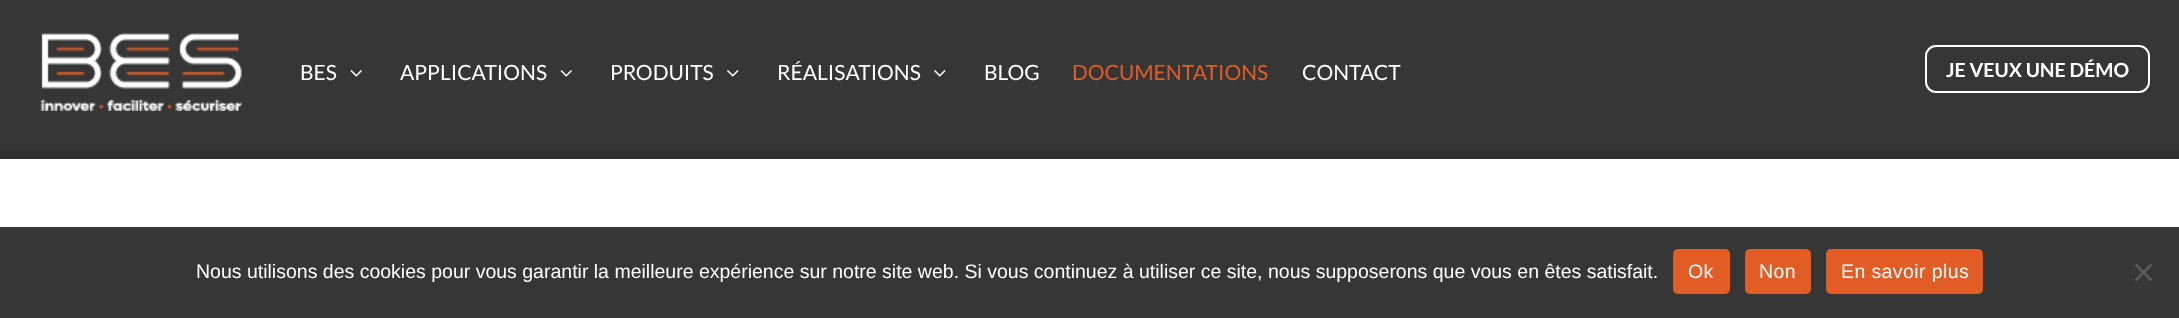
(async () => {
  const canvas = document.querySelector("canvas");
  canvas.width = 2179;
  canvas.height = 318;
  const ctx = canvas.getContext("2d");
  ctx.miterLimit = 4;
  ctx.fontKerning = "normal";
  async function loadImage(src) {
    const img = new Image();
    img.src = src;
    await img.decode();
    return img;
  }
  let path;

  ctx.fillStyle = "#303030";
  ctx.fillRect(0, 0, 2179, 318);
  ctx.fillStyle = "#363636";
  ctx.fillRect(0, 0, 2179, 150);
  ctx.drawImage(await loadImage("img/1.png"), 40, 33, 202, 78);
  ctx.drawImage(await loadImage("img/2.png"), 350, 70, 12, 7);
  ctx.drawImage(await loadImage("img/2.png"), 560, 70, 12, 7);
  ctx.drawImage(await loadImage("img/3.png"), 727, 70, 12, 7);
  ctx.drawImage(await loadImage("img/3.png"), 934, 70, 12, 7);
  ctx.beginPath();
  ctx.roundRect(1926, 46, 223, 46, 10);
  ctx.strokeStyle = "#ffffff";
  ctx.lineWidth = 2;
  ctx.stroke();
  ctx.fillStyle = "#ffffff";
  ctx.fillRect(0, 159, 2179, 68);
  ctx.fillStyle = "#363636";
  ctx.fillRect(0, 227, 2179, 91);
  ctx.fillStyle = "#e25d25";
  ctx.beginPath();
  ctx.roundRect(1673, 249, 57, 45, 5);
  ctx.fill();
  ctx.beginPath();
  ctx.roundRect(1745, 249, 66, 45, 5);
  ctx.fill();
  ctx.beginPath();
  ctx.roundRect(1826, 249, 157, 45, 5);
  ctx.fill();
  ctx.fillStyle = "#5b5b5b";
  path = new Path2D("M2150.5 263.5L2152.5 265.5L2136.5 281.5L2134.5 279.5Z");
  ctx.fill(path);
  path = new Path2D("M2134.5 265.5L2136.5 263.5L2152.5 279.5L2150.5 281.5Z");
  ctx.fill(path);
  ctx.font = "21px Lato";
  ctx.fillStyle = "#ffffff";
  for (const [text, x, y] of [
    ["BES", 300, 80],
    ["APPLICATIONS", 400, 80],
    ["PRODUITS", 610, 80],
    ["RÉALISATIONS", 777, 80],
    ["BLOG", 984, 80],
  ]) {
    ctx.fillText(text, x, y);
  }
  ctx.fillStyle = "#e25d25";
  ctx.fillText("DOCUMENTATIONS", 1072, 80);
  ctx.fillStyle = "#ffffff";
  ctx.fillText("CONTACT", 1302, 80);
  ctx.font = "bold 19.5px Lato";
  ctx.fillText("JE VEUX UNE DÉMO", 1946, 77);
  ctx.font = "19.5px Liberation Sans";
  ctx.fillText("Nous utilisons des cookies pour vous garantir la meilleure expérience sur notre site web. Si vous continuez à utiliser ce site, nous supposerons que vous en êtes satisfait.", 196, 278);
  ctx.letterSpacing = "0.4px";
  for (const [text, x, y] of [
    ["Ok", 1688, 278],
    ["Non", 1759, 278],
    ["En savoir plus", 1841, 278],
  ]) {
    ctx.fillText(text, x, y);
  }
})();
